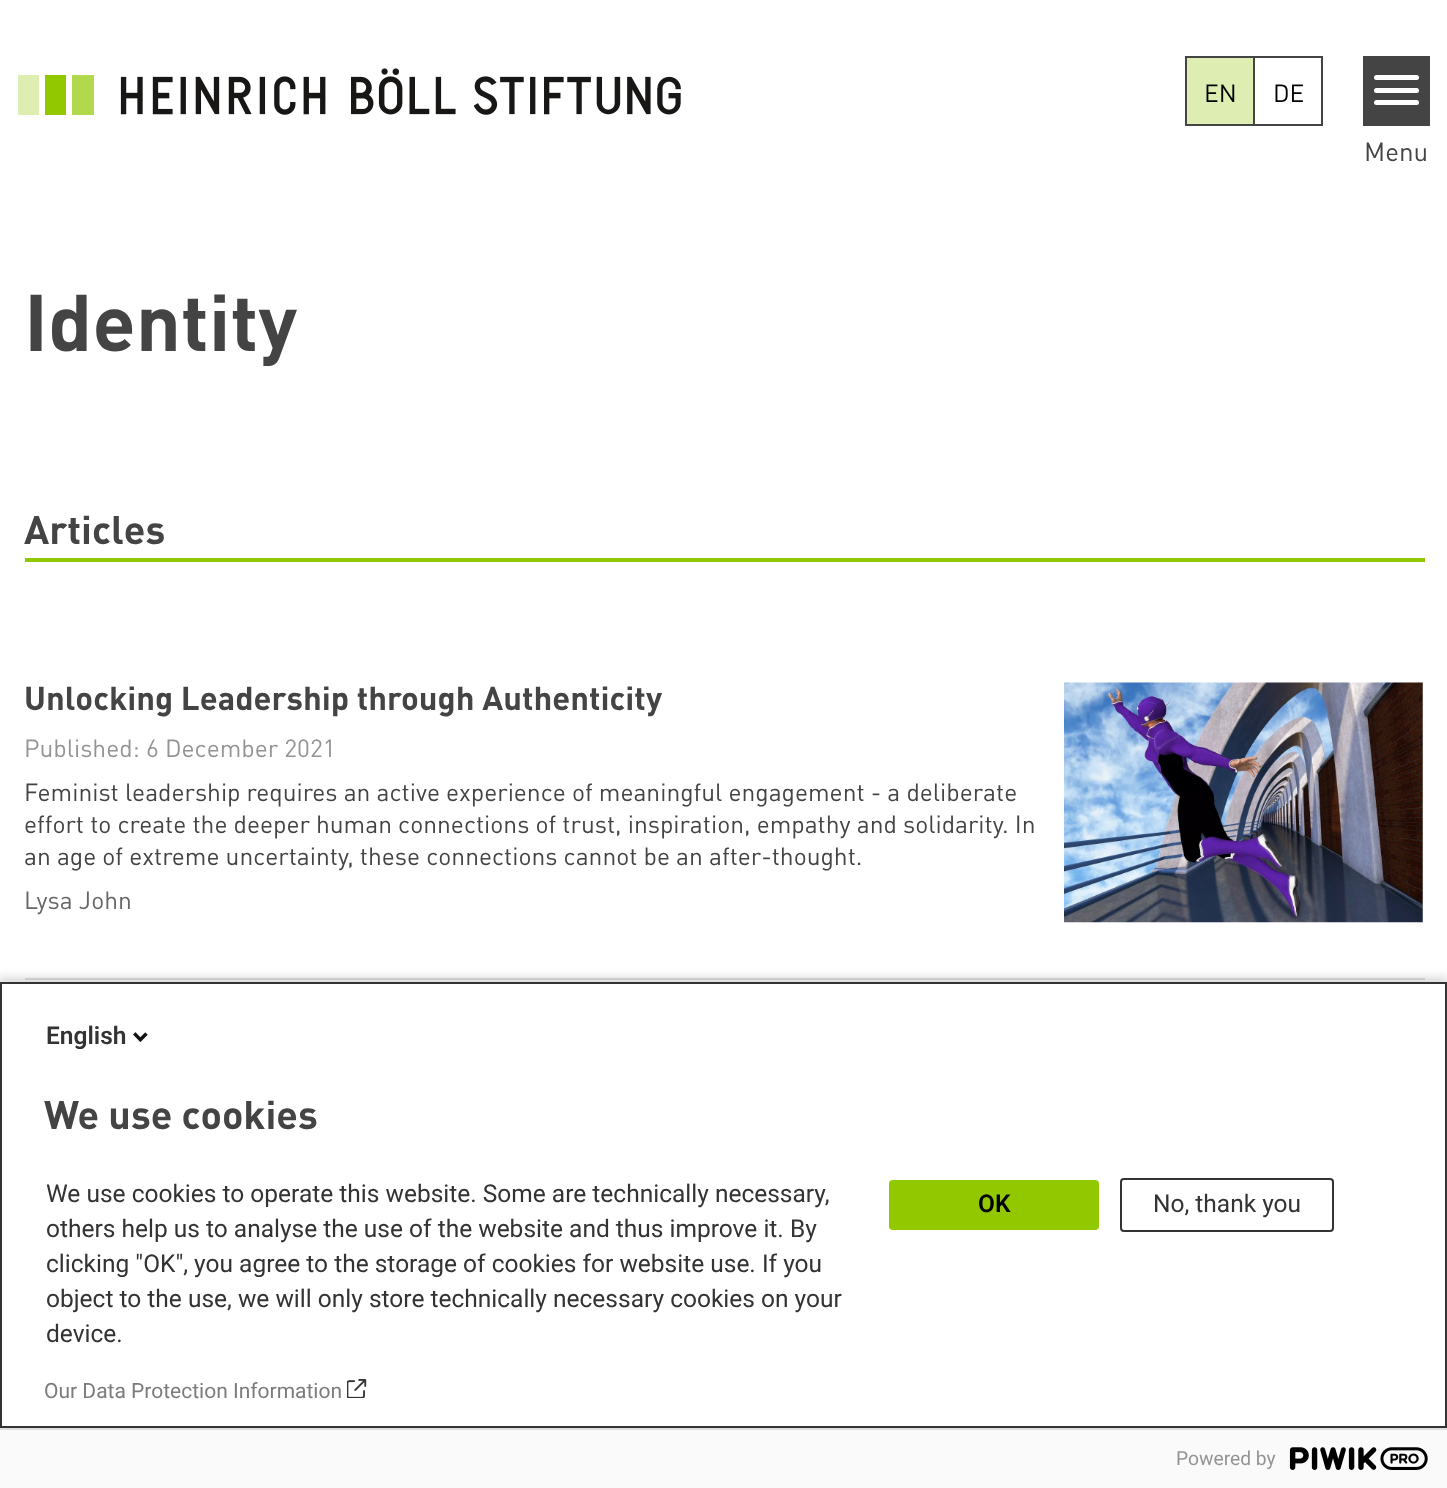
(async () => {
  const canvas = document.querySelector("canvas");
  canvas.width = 1447;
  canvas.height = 1488;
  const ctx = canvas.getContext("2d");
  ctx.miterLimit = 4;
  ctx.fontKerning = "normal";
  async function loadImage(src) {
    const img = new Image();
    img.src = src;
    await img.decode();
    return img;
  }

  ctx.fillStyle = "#ffffff";
  ctx.fillRect(0, 0, 1447, 1488);
  ctx.drawImage(await loadImage("img/1.png"), 18, 68, 663, 47);
  for (const [x, y, w, h, color] of [
    [1185, 56, 68, 2, "#444444"],
    [1185, 124, 68, 2, "#444444"],
    [1185, 56, 2, 70, "#444444"],
    [1187, 58, 66, 66, "#deeeb2"],
  ]) {
    ctx.fillStyle = color;
    ctx.fillRect(x, y, w, h);
  }
  ctx.strokeStyle = "#444444";
  ctx.lineWidth = 2;
  ctx.strokeRect(1254, 57, 68, 68);
  ctx.fillStyle = "#444444";
  ctx.fillRect(1363, 56, 67, 70);
  ctx.fillStyle = "#ffffff";
  ctx.beginPath();
  ctx.roundRect(1374, 88, 45, 5, 2.5);
  ctx.fill();
  ctx.beginPath();
  ctx.roundRect(1374, 75, 45, 5, 2.5);
  ctx.fill();
  ctx.beginPath();
  ctx.roundRect(1374, 100, 45, 5, 2.5);
  ctx.fill();
  ctx.fillStyle = "#91c800";
  ctx.fillRect(25, 558, 1400, 4);
  ctx.fillStyle = "#e2e2e2";
  ctx.fillRect(25, 978, 1400, 2);
  ctx.drawImage(await loadImage("img/2.png"), 1064, 682, 359, 241);
  ctx.fillStyle = "rgba(0, 0, 0, 0.14)";
  ctx.filter = "blur(4.5px)";
  ctx.beginPath();
  ctx.rect(-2, 977, 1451, 511);
  ctx.fill();
  ctx.filter = "none";
  ctx.fillStyle = "#ffffff";
  ctx.beginPath();
  ctx.rect(1, 983, 1445, 444);
  ctx.fill();
  ctx.strokeStyle = "#333333";
  ctx.stroke();
  ctx.drawImage(await loadImage("img/3.png"), 133, 1032, 15, 10);
  ctx.drawImage(await loadImage("img/4.png"), 347, 1379, 20, 19);
  ctx.fillStyle = "#91c800";
  ctx.beginPath();
  ctx.roundRect(889, 1180, 210, 50, 4);
  ctx.fill();
  ctx.beginPath();
  ctx.roundRect(1121, 1179, 212, 52, 3);
  ctx.stroke();
  ctx.fillStyle = "#fafafa";
  ctx.fillRect(0, 1430, 1447, 58);
  ctx.fillStyle = "#dddddd";
  ctx.fillRect(0, 1428, 1447, 2);
  ctx.drawImage(await loadImage("img/5.png"), 1289, 1447, 139, 23);
  ctx.font = "24.6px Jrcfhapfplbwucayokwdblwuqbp";
  ctx.fillStyle = "#000000";
  ctx.fillText("EN", 1204, 102);
  ctx.fillText("DE", 1273, 102);
  ctx.font = "26px Jrcfhapfplbwucayokwdblwuqbp";
  ctx.fillStyle = "#444444";
  ctx.fillText("Menu", 1364, 161);
  ctx.font = "bold 79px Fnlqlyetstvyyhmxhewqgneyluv";
  ctx.fillText("Identity", 24, 351);
  ctx.font = "bold 39.5px Fnlqlyetstvyyhmxhewqgneyluv";
  ctx.fillText("Articles", 24, 544);
  ctx.font = "bold 32.8px Fnlqlyetstvyyhmxhewqgneyluv";
  ctx.fillText("Unlocking Leadership through Authenticity", 24, 710);
  ctx.font = "24.6px Jrcfhapfplbwucayokwdblwuqbp";
  ctx.fillStyle = "#949494";
  ctx.fillText("Published: 6 December 2021", 24, 757);
  ctx.fillStyle = "#444444";
  for (const [text, x, y] of [
    ["Feminist leadership requires an active experience of meaningful engagement - a deliberate", 24, 801],
    ["effort to create the deeper human connections of trust, inspiration, empathy and solidarity. In", 24, 833],
    ["an age of extreme uncertainty, these connections cannot be an after-thought.", 24, 865],
  ]) {
    ctx.fillText(text, x, y);
  }
  ctx.fillStyle = "#666666";
  ctx.fillText("Lysa John", 24, 909);
  ctx.font = "600 24.5px Roboto";
  ctx.fillStyle = "#333333";
  ctx.fillText("English", 46, 1044);
  ctx.font = "bold 39.5px Fnlqlyetstvyyhmxhewqgneyluv";
  ctx.fillStyle = "#444444";
  ctx.fillText("We use cookies", 44, 1129);
  ctx.font = "24.5px Roboto";
  ctx.fillStyle = "#333333";
  for (const [text, x, y] of [
    ["We use cookies to operate this website. Some are technically necessary,", 46, 1202],
    ["others help us to analyse the use of the website and thus improve it. By", 46, 1237],
    ["clicking \"OK\", you agree to the storage of cookies for website use. If you", 46, 1272],
    ["object to the use, we will only store technically necessary cookies on your", 46, 1307],
    ["device.", 46, 1342],
  ]) {
    ctx.fillText(text, x, y);
  }
  ctx.font = "21px Roboto";
  ctx.fillStyle = "#7c7c7c";
  ctx.fillText("Our Data Protection Information", 44, 1398);
  ctx.font = "600 24.5px Roboto";
  ctx.fillStyle = "#000000";
  ctx.fillText("OK", 978, 1212);
  ctx.font = "24.5px Roboto";
  ctx.fillStyle = "#333333";
  ctx.fillText("No, thank you", 1153, 1212);
  ctx.font = "19.25px Roboto";
  ctx.fillStyle = "#949494";
  ctx.fillText("Powered by", 1176, 1465);
})();
